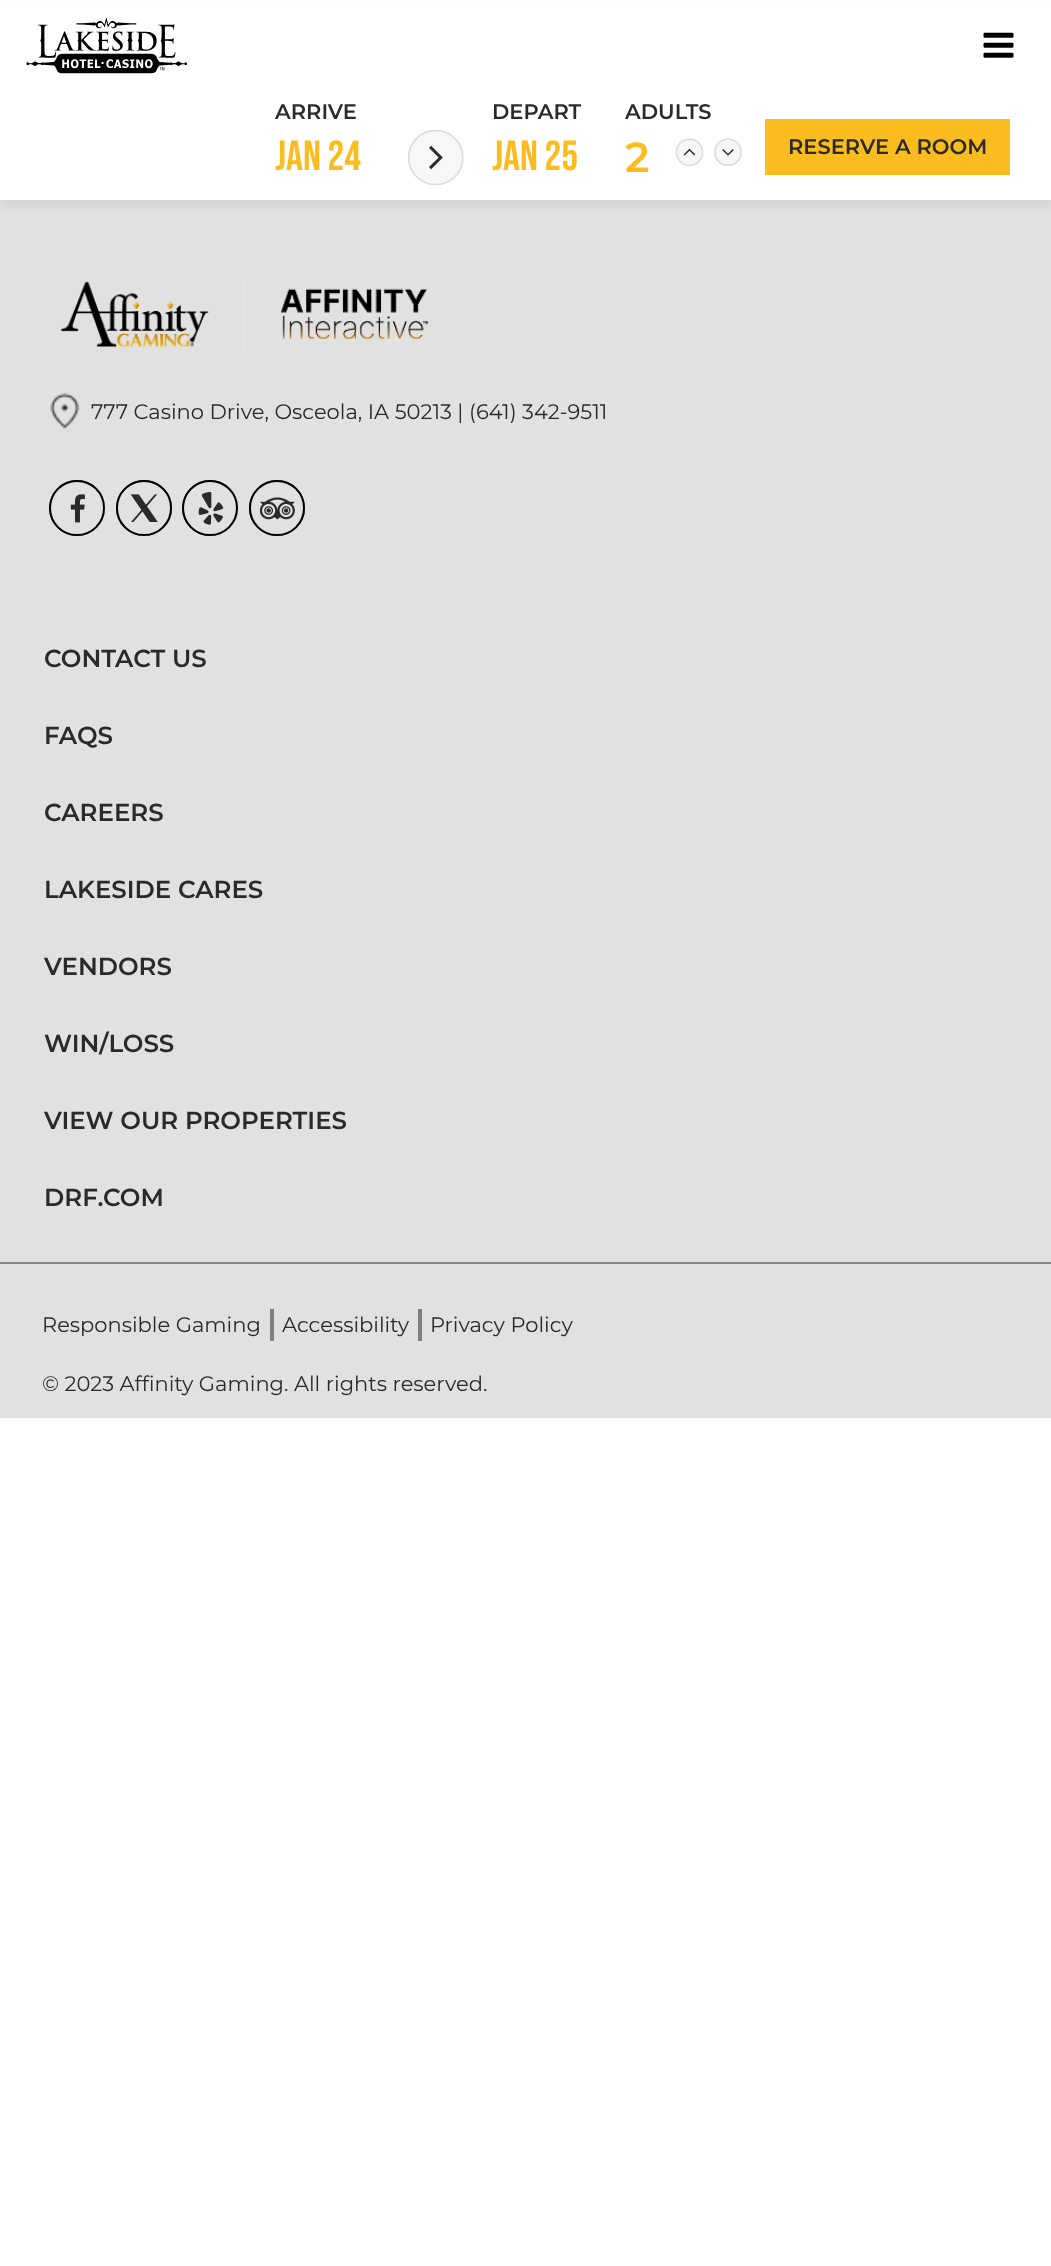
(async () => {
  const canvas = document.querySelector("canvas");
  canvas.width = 1051;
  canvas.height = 2266;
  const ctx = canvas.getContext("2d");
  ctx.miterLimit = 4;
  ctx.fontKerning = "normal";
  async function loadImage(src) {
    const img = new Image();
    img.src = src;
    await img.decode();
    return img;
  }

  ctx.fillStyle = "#ffffff";
  ctx.fillRect(0, 0, 1051, 2266);
  ctx.fillStyle = "#e1e1e1";
  ctx.fillRect(0, 200, 1051, 1218);
  ctx.fillStyle = "rgba(0, 0, 0, 0.05)";
  ctx.filter = "blur(3.5px)";
  ctx.beginPath();
  ctx.rect(0, 7, 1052, 200);
  ctx.fill();
  ctx.filter = "none";
  ctx.fillStyle = "#ffffff";
  ctx.fillRect(0, 4, 1051, 196);
  ctx.drawImage(await loadImage("img/1.png"), 26, 18, 161, 56);
  ctx.drawImage(await loadImage("img/2.png"), 983, 32, 31, 26);
  ctx.drawImage(await loadImage("img/3.png"), 408, 129, 56, 57);
  ctx.drawImage(await loadImage("img/4.png"), 675, 138, 29, 28);
  ctx.drawImage(await loadImage("img/5.png"), 714, 138, 28, 28);
  ctx.fillStyle = "#fabc1f";
  ctx.fillRect(765, 119, 245, 56);
  ctx.drawImage(await loadImage("img/6.png"), 61, 281, 148, 66);
  ctx.fillStyle = "#e6e6e6";
  ctx.fillRect(243, 282, 2, 65);
  ctx.drawImage(await loadImage("img/7.png"), 281, 288, 148, 52);
  ctx.drawImage(await loadImage("img/8.png"), 50, 393, 30, 37);
  ctx.drawImage(await loadImage("img/9.png"), 49, 480, 56, 56);
  ctx.beginPath();
  ctx.arc(77, 508, 27, 0, Math.PI * 2);
  ctx.strokeStyle = "#000000";
  ctx.lineWidth = 2;
  ctx.stroke();
  ctx.drawImage(await loadImage("img/10.png"), 116, 480, 56, 56);
  ctx.beginPath();
  ctx.arc(144, 508, 27, 0, Math.PI * 2);
  ctx.stroke();
  ctx.drawImage(await loadImage("img/11.png"), 182, 480, 56, 56);
  ctx.beginPath();
  ctx.arc(210, 508, 27, 0, Math.PI * 2);
  ctx.stroke();
  ctx.drawImage(await loadImage("img/12.png"), 249, 480, 56, 56);
  ctx.beginPath();
  ctx.arc(277, 508, 27, 0, Math.PI * 2);
  ctx.stroke();
  for (const [x, y, w, h, color] of [
    [0, 1262, 1051, 2, "#868686"],
    [270, 1309, 4, 32, "#808080"],
    [418, 1309, 4, 32, "#808080"],
  ]) {
    ctx.fillStyle = color;
    ctx.fillRect(x, y, w, h);
  }
  ctx.font = "600 21px Montserrat";
  ctx.fillStyle = "#2a2a2a";
  ctx.fillText("ARRIVE", 275, 119);
  ctx.font = "42px Bebas Neue";
  ctx.fillStyle = "#fabc1f";
  ctx.fillText("Jan 24", 275, 170);
  ctx.font = "600 21px Montserrat";
  ctx.fillStyle = "#2a2a2a";
  ctx.fillText("DEPART", 492, 119);
  ctx.font = "42px Bebas Neue";
  ctx.fillStyle = "#fabc1f";
  ctx.fillText("Jan 25", 492, 170);
  ctx.font = "600 21px Montserrat";
  ctx.fillStyle = "#2a2a2a";
  ctx.fillText("ADULTS", 625, 119);
  ctx.font = "600 42px Montserrat";
  ctx.fillStyle = "#fabc1f";
  ctx.fillText("2", 625, 172);
  ctx.font = "600 21px Montserrat";
  ctx.fillStyle = "#2a2a2a";
  ctx.fillText("RESERVE A ROOM", 788, 154);
  ctx.font = "21px Montserrat";
  ctx.fillText("777 Casino Drive, Osceola, IA 50213 | (641) 342-9511", 91, 419);
  ctx.font = "600 24.5px Montserrat";
  for (const [text, x, y] of [
    ["CONTACT US", 44, 667],
    ["FAQS", 44, 744],
    ["CAREERS", 44, 821],
    ["LAKESIDE CARES", 44, 898],
    ["VENDORS", 44, 975],
    ["WIN/LOSS", 44, 1052],
    ["VIEW OUR PROPERTIES", 44, 1129],
    ["DRF.COM", 44, 1206],
  ]) {
    ctx.fillText(text, x, y);
  }
  ctx.font = "21px Montserrat";
  for (const [text, x, y] of [
    ["Responsible Gaming", 42, 1332],
    ["Accessibility", 282, 1332],
    ["Privacy Policy", 430, 1332],
    ["© 2023 Affinity Gaming. All rights reserved.", 42, 1391],
  ]) {
    ctx.fillText(text, x, y);
  }
})();
